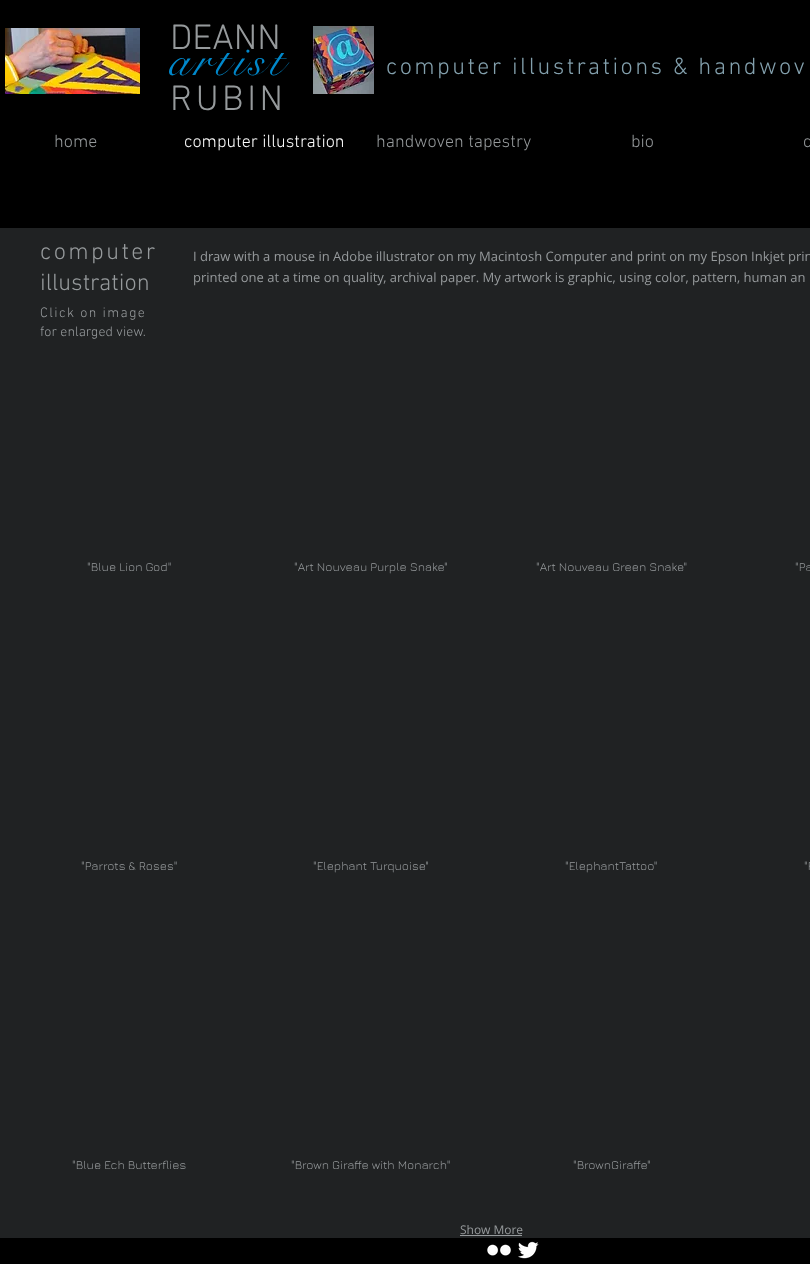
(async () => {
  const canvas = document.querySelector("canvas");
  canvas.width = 810;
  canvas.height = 1264;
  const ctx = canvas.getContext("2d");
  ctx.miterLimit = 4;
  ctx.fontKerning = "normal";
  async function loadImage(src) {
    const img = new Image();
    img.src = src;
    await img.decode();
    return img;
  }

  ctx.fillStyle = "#000000";
  ctx.fillRect(0, 0, 810, 1264);
  ctx.drawImage(await loadImage("img/1.png"), 5, 28, 135, 66);
  ctx.drawImage(await loadImage("img/2.png"), 313, 26, 61, 68);
  ctx.fillStyle = "#202223";
  ctx.fillRect(0, 228, 810, 1010);
  ctx.fillStyle = "#969a9c";
  ctx.fillRect(460, 1235, 62, 1);
  ctx.drawImage(await loadImage("img/3.png"), 487, 1244, 24, 12);
  ctx.drawImage(await loadImage("img/4.png"), 518, 1241, 21, 18);
  ctx.font = "300 36px 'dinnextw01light'";
  ctx.fillText("DEANN", 170, 49);
  ctx.letterSpacing = "3.5px";
  ctx.fillText("RUBIN", 170, 110);
  ctx.letterSpacing = "4.75px";
  ctx.font = "48px 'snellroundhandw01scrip'";
  ctx.fillStyle = "#0088cb";
  ctx.fillText("artist", 169, 75);
  ctx.letterSpacing = "2.4px";
  ctx.font = "300 24px 'dinnextw01light'";
  ctx.fillStyle = "#83a0ad";
  ctx.fillText("computer illustrations & handwov", 386, 74);
  ctx.letterSpacing = "0px";
  ctx.font = "300 18px 'dinnextw01light'";
  ctx.fillStyle = "#969a9c";
  ctx.fillText("home", 54, 147);
  ctx.fillStyle = "#ffffff";
  ctx.fillText("computer illustration", 184, 147);
  ctx.fillStyle = "#969a9c";
  for (const [text, x, y] of [
    ["handwoven tapestry", 376, 147],
    ["bio", 631, 147],
    ["c", 803, 147],
  ]) {
    ctx.fillText(text, x, y);
  }
  ctx.letterSpacing = "2.4px";
  ctx.font = "300 24px 'dinnextw01light'";
  ctx.fillText("computer", 40, 259);
  ctx.letterSpacing = "0px";
  ctx.fillText("illustration", 40, 290);
  ctx.font = "13px Open Sans";
  ctx.fillText("I draw with a mouse in Adobe illustrator on my Macintosh Computer and print on my Epson Inkjet prin", 193, 261);
  ctx.fillText("printed one at a time on quality, archival paper. My artwork is graphic, using color, pattern, human an", 193, 282);
  ctx.letterSpacing = "1.4px";
  ctx.font = "300 14px 'dinnextw01light'";
  ctx.fillText("Click on image", 40, 317);
  ctx.letterSpacing = "0px";
  ctx.fillText("for enlarged view.", 40, 336);
  ctx.font = "12px Jura";
  for (const [text, x, y] of [
    ["\"Blue Lion God\"", 87, 571],
    ["\"Art Nouveau Purple Snake\"", 294, 571],
    ["\"Art Nouveau Green Snake\"", 536, 571],
    ["\"Pa", 795, 571],
    ["\"Parrots & Roses\"", 81, 870],
    ["\"Elephant Turquoise\"", 313, 870],
    ["\"ElephantTattoo\"", 565, 870],
    ["\"F", 804, 870],
    ["\"Blue Ech Butterflies", 72, 1169],
    ["\"Brown Giraffe with Monarch\"", 291, 1169],
    ["\"BrownGiraffe\"", 573, 1169],
  ]) {
    ctx.fillText(text, x, y);
  }
  ctx.font = "12px Open Sans";
  ctx.fillText("Show More", 460, 1234);
})();
